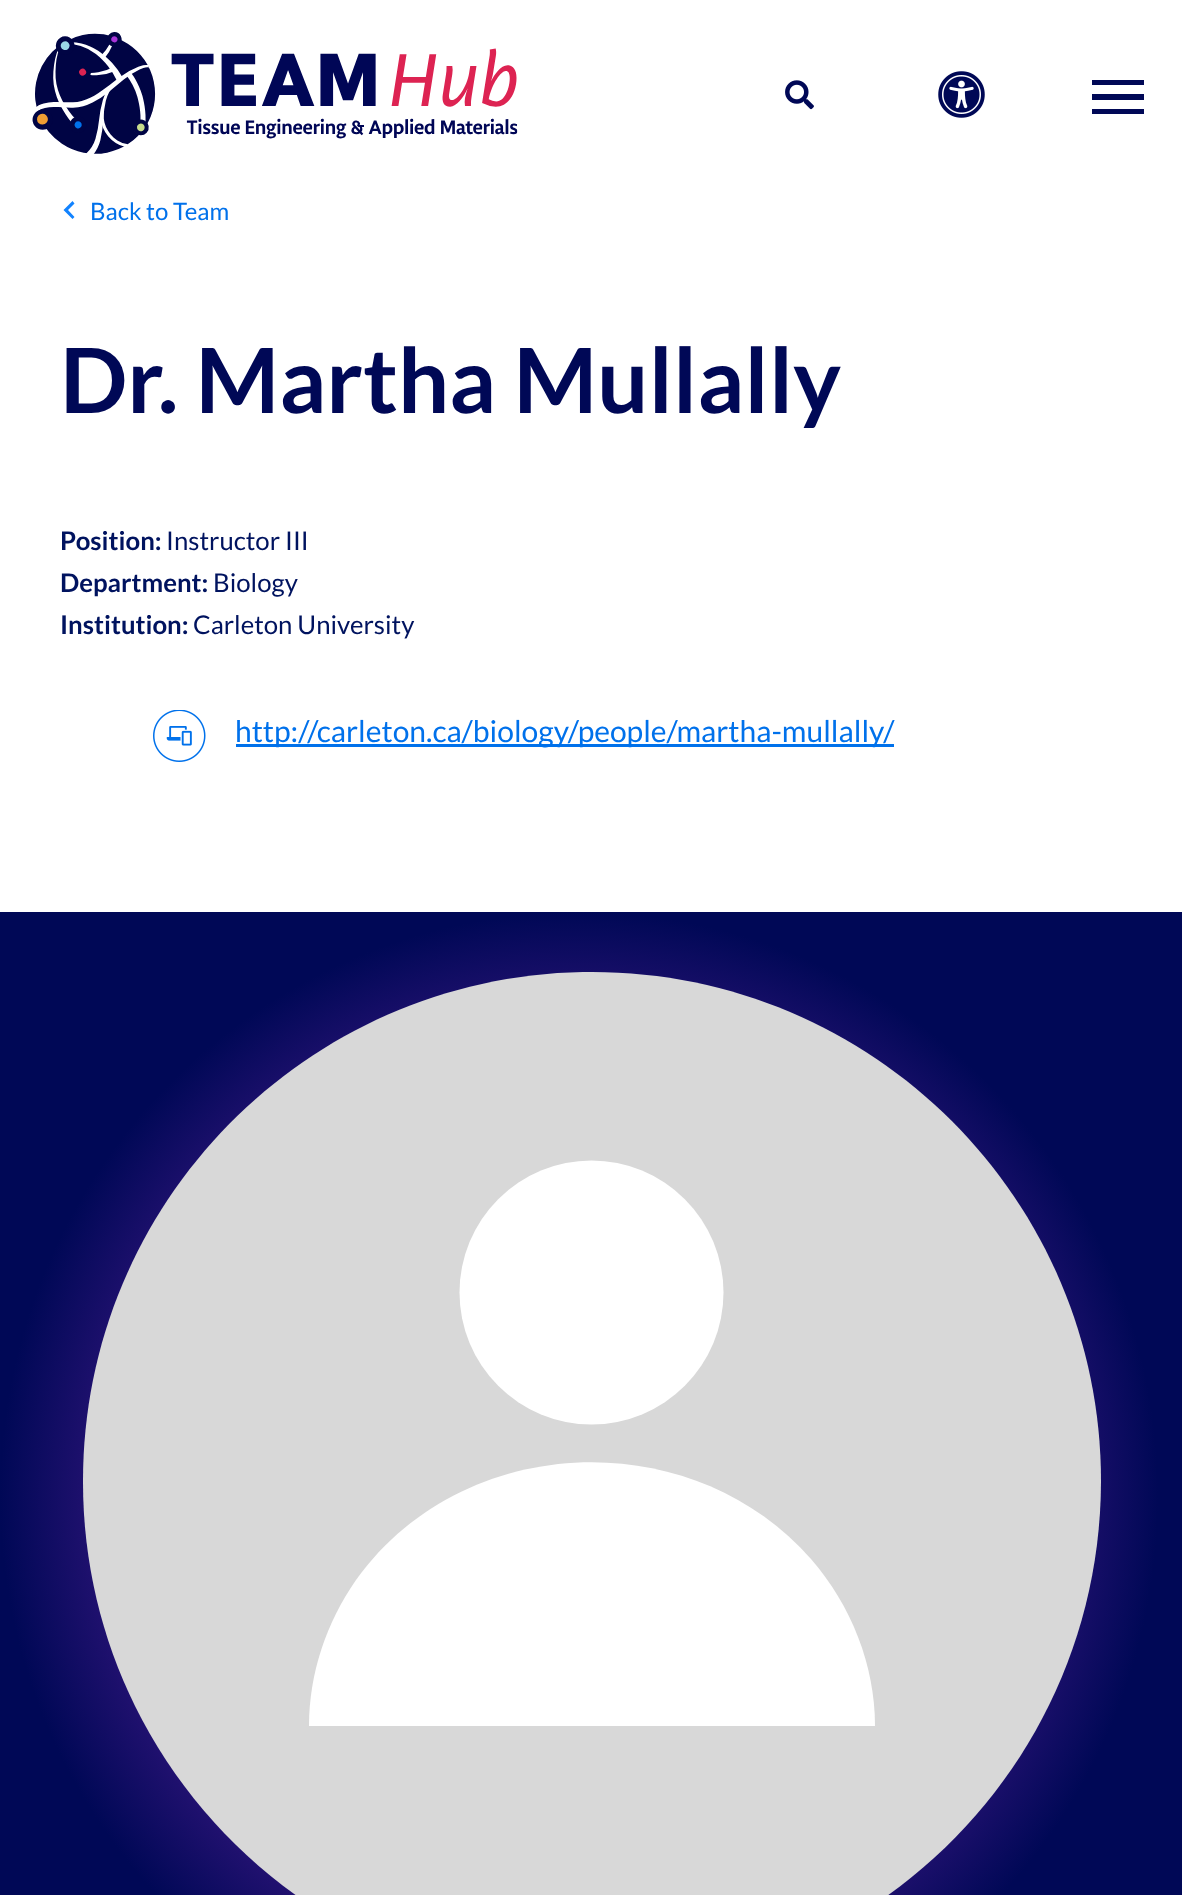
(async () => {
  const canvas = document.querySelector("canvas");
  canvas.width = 1182;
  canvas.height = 1895;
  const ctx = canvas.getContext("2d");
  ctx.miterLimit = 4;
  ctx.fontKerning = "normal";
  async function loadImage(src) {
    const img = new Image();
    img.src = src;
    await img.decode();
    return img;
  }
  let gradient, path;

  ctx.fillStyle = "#ffffff";
  ctx.fillRect(0, 0, 1182, 1895);
  ctx.drawImage(await loadImage("img/1.png"), 32, 32, 486, 122);
  ctx.drawImage(await loadImage("img/2.png"), 785, 80, 29, 30);
  ctx.drawImage(await loadImage("img/3.png"), 938, 71, 47, 47);
  ctx.save();
  ctx.beginPath();
  ctx.rect(1092, 80, 53, 34);
  ctx.clip();
  ctx.fillStyle = "#000856";
  path = new Path2D("M1092 114H1144V109H1092ZM1092 100H1144V94H1092ZM1092 79V85H1144V79Z");
  ctx.fill(path);
  ctx.restore();
  ctx.fillStyle = "#1283ff";
  path = new Path2D("M63.5 210L72.5 201L74.5 203.5L68 210L74.5 217L72.5 219Z");
  ctx.fill(path);
  ctx.drawImage(await loadImage("img/4.png"), 153, 710, 53, 52);
  ctx.fillStyle = "#0071eb";
  ctx.fillRect(236, 744, 658, 3);
  gradient = ctx.createRadialGradient(579, 1483.19, 0, 579, 1483.19, 579);
  gradient.addColorStop(0, "#a735d8");
  gradient.addColorStop(0.41, "#7828b3");
  gradient.addColorStop(1, "#000856");
  ctx.fillStyle = gradient;
  ctx.beginPath();
  ctx.rect(0, 912, 1182, 983);
  ctx.save();
  ctx.clip();
  ctx.scale(1, 584 / 579);
  ctx.fillRect(0, 0, 1182, 1879);
  ctx.restore();
  ctx.fillStyle = "#d8d8d8";
  path = new Path2D("M592 972H583C306 977 83 1203 83 1481V1482C83 1563 102 1639 135 1706C218 1874 391 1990 592 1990C873 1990 1100 1763 1101 1482V1481C1101 1200 873 972 592 972Z");
  ctx.fill(path);
  ctx.fillStyle = "#ffffff";
  ctx.beginPath();
  ctx.arc(591.5, 1292.5, 132, 0, Math.PI * 2);
  ctx.fill();
  path = new Path2D("M875 1726H309C309 1674 326 1623 356 1580C463 1431 691 1423 811 1559C851 1605 875 1665 875 1726Z");
  ctx.fill(path);
  ctx.font = "24px Lato";
  ctx.fillStyle = "#0071eb";
  ctx.fillText("Back to Team", 90, 220);
  ctx.font = "bold 90px Lato";
  ctx.fillStyle = "#000856";
  ctx.fillText("Dr. Martha Mullally", 60, 413);
  ctx.font = "bold 25.75px Lato";
  ctx.fillStyle = "#00135f";
  ctx.fillText("Position:", 60, 550);
  ctx.font = "25.75px Lato";
  ctx.fillText("Instructor III", 166, 550);
  ctx.font = "bold 25.75px Lato";
  ctx.fillText("Department:", 60, 592);
  ctx.font = "25.75px Lato";
  ctx.fillText("Biology", 213, 592);
  ctx.font = "bold 25.75px Lato";
  ctx.fillText("Institution:", 60, 634);
  ctx.font = "25.75px Lato";
  ctx.fillText("Carleton University", 193, 634);
  ctx.font = "30px Lato";
  ctx.fillStyle = "#0071eb";
  ctx.fillText("http://carleton.ca/biology/people/martha-mullally/", 235, 742);
})();
